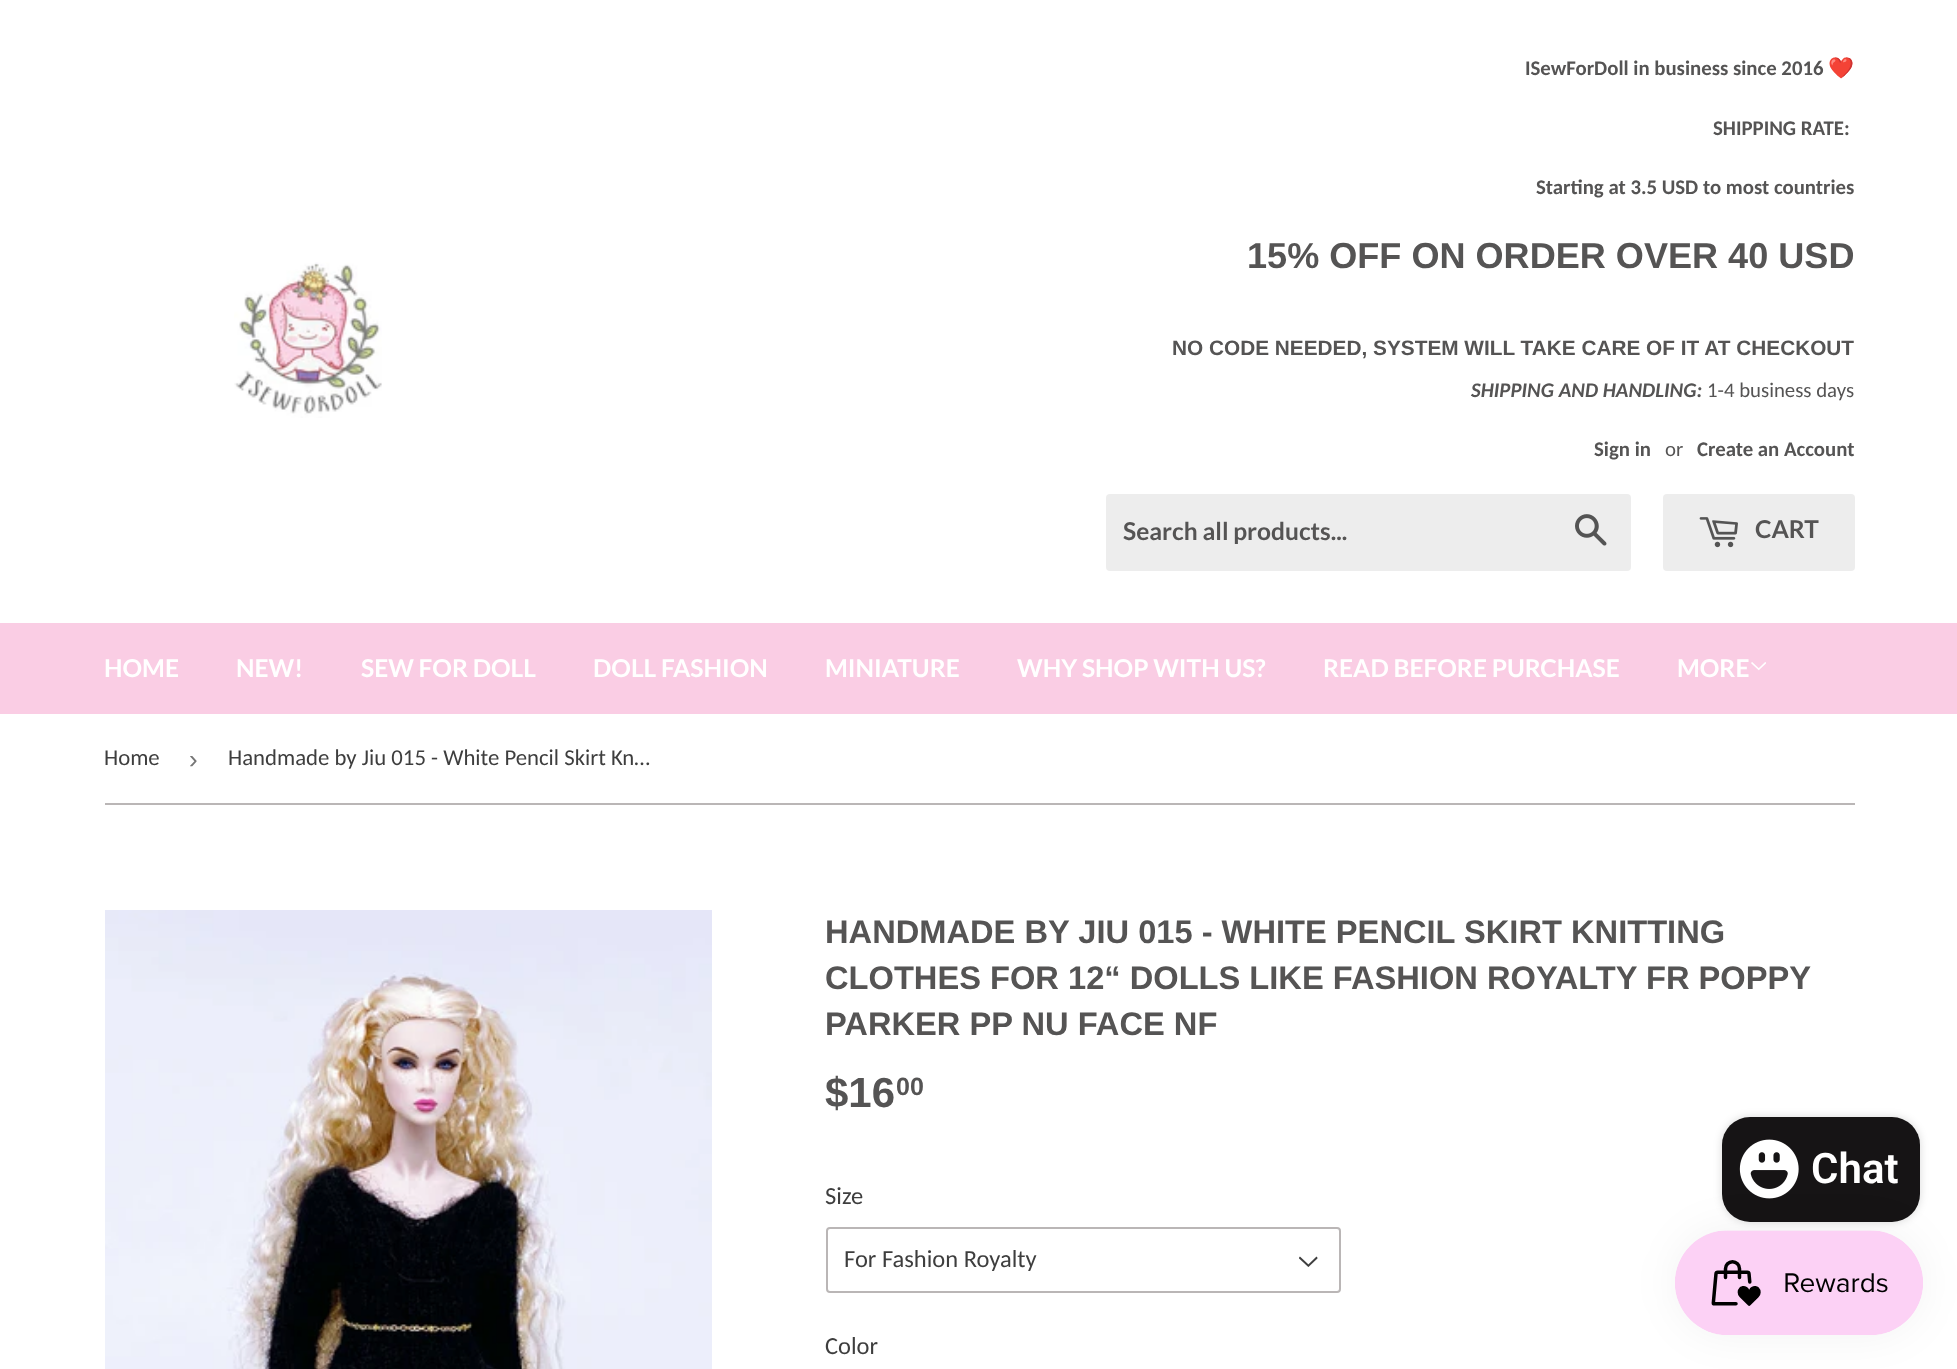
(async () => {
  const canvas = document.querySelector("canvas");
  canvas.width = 1957;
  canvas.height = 1369;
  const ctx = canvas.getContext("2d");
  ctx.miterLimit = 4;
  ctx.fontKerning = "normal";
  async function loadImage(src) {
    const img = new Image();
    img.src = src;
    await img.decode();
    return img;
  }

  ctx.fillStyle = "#ffffff";
  ctx.fillRect(0, 0, 1957, 1369);
  ctx.drawImage(await loadImage("img/1.png"), 234, 262, 148, 156);
  ctx.fillStyle = "#ededed";
  ctx.beginPath();
  ctx.roundRect(1106, 494, 525, 77, 4);
  ctx.fill();
  ctx.drawImage(await loadImage("img/2.png"), 1575, 514, 32, 32);
  ctx.beginPath();
  ctx.roundRect(1663, 494, 192, 77, 4);
  ctx.fill();
  ctx.drawImage(await loadImage("img/3.png"), 1699, 517, 39, 31);
  ctx.fillStyle = "#facde4";
  ctx.fillRect(0, 623, 1957, 91);
  ctx.drawImage(await loadImage("img/4.png"), 1751, 662, 15, 9);
  ctx.fillStyle = "#bab6b6";
  ctx.fillRect(105, 803, 1750, 2);
  ctx.drawImage(await loadImage("img/5.png"), 105, 910, 607, 459);
  ctx.drawImage(await loadImage("img/6.png"), 1299, 1256, 19, 11);
  ctx.beginPath();
  ctx.roundRect(827, 1228, 513, 64, 3);
  ctx.strokeStyle = "#bab6b6";
  ctx.lineWidth = 2;
  ctx.stroke();
  ctx.fillStyle = "rgba(0, 0, 0, 0.15)";
  ctx.filter = "blur(4.5px)";
  ctx.beginPath();
  ctx.roundRect(1722, 1117, 198, 105, 28);
  ctx.fill();
  ctx.filter = "none";
  ctx.fillStyle = "#161415";
  ctx.beginPath();
  ctx.roundRect(1722, 1117, 198, 105, 28);
  ctx.fill();
  ctx.drawImage(await loadImage("img/7.png"), 1739, 1139, 60, 60);
  ctx.fillStyle = "rgba(0, 0, 0, 0.05)";
  ctx.filter = "blur(22px)";
  ctx.beginPath();
  ctx.roundRect(1675, 1230, 248, 105, 52.5);
  ctx.fill();
  ctx.filter = "none";
  ctx.drawImage(await loadImage("img/8.png"), 1675, 1230, 248, 105);
  ctx.font = "bold 20.8px Carlito";
  ctx.fillStyle = "#555454";
  ctx.fillText("ISewForDoll in business since 2016", 1525, 75);
  ctx.font = "20.8px Noto Color Emoji";
  ctx.fillText("❤️", 1828, 75);
  ctx.font = "bold 20.8px Carlito";
  ctx.fillText("SHIPPING RATE:", 1713, 135);
  ctx.fillText("Starting at 3.5 USD to most countries", 1536, 194);
  ctx.font = "bold 36.1px Liberation Sans";
  ctx.fillText("15% OFF ON ORDER OVER 40 USD", 1247, 268);
  ctx.font = "bold 20.8px Liberation Sans";
  ctx.fillText("NO CODE NEEDED, SYSTEM WILL TAKE CARE OF IT AT CHECKOUT", 1172, 355);
  ctx.font = "italic bold 20.8px Carlito";
  ctx.fillText("SHIPPING AND HANDLING:", 1471, 397);
  ctx.font = "20.8px Carlito";
  ctx.fillText("1-4 business days", 1707, 397);
  ctx.font = "bold 20.8px Carlito";
  ctx.fillText("Sign in", 1594, 456);
  ctx.font = "20.8px Carlito";
  ctx.fillText("or", 1665, 456);
  ctx.font = "bold 20.8px Carlito";
  ctx.fillText("Create an Account", 1697, 456);
  ctx.font = "bold 24.5px Lato";
  ctx.fillText("Search all products...", 1123, 540);
  ctx.fillText("CART", 1755, 538);
  ctx.fillStyle = "#ffffff";
  for (const [text, x, y] of [
    ["HOME", 104, 677],
    ["NEW!", 236, 677],
    ["SEW FOR DOLL", 361, 677],
    ["DOLL FASHION", 593, 677],
    ["MINIATURE", 825, 677],
    ["WHY SHOP WITH US?", 1017, 677],
    ["READ BEFORE PURCHASE", 1323, 677],
    ["MORE", 1677, 677],
  ]) {
    ctx.fillText(text, x, y);
  }
  ctx.font = "22.75px Carlito";
  ctx.fillStyle = "#3e3e3e";
  ctx.fillText("Home", 104, 765);
  ctx.font = "26px Liberation Sans";
  ctx.fillStyle = "#767676";
  ctx.fillText("›", 189, 768);
  ctx.font = "22.75px Carlito";
  ctx.fillStyle = "#3e3e3e";
  ctx.fillText("Handmade by Jiu 015 - White Pencil Skirt Kn…", 228, 765);
  ctx.font = "bold 32.65px Liberation Sans";
  ctx.fillStyle = "#555454";
  for (const [text, x, y] of [
    ["HANDMADE BY JIU 015 - WHITE PENCIL SKIRT KNITTING", 825, 943],
    ["CLOTHES FOR 12“ DOLLS LIKE FASHION ROYALTY FR POPPY", 825, 989],
    ["PARKER PP NU FACE NF", 825, 1035],
  ]) {
    ctx.fillText(text, x, y);
  }
  ctx.font = "bold 42px Liberation Sans";
  ctx.fillText("$16", 825, 1107);
  ctx.font = "bold 25px Liberation Sans";
  ctx.fillText("00", 896, 1095);
  ctx.font = "24.5px Carlito";
  ctx.fillStyle = "#3e3e3e";
  for (const [text, x, y] of [
    ["Size", 825, 1204],
    ["For Fashion Royalty", 844, 1267],
    ["Color", 825, 1354],
  ]) {
    ctx.fillText(text, x, y);
  }
  ctx.font = "600 42px Roboto";
  ctx.fillStyle = "#ffffff";
  ctx.fillText("Chat", 1811, 1183);
})();
